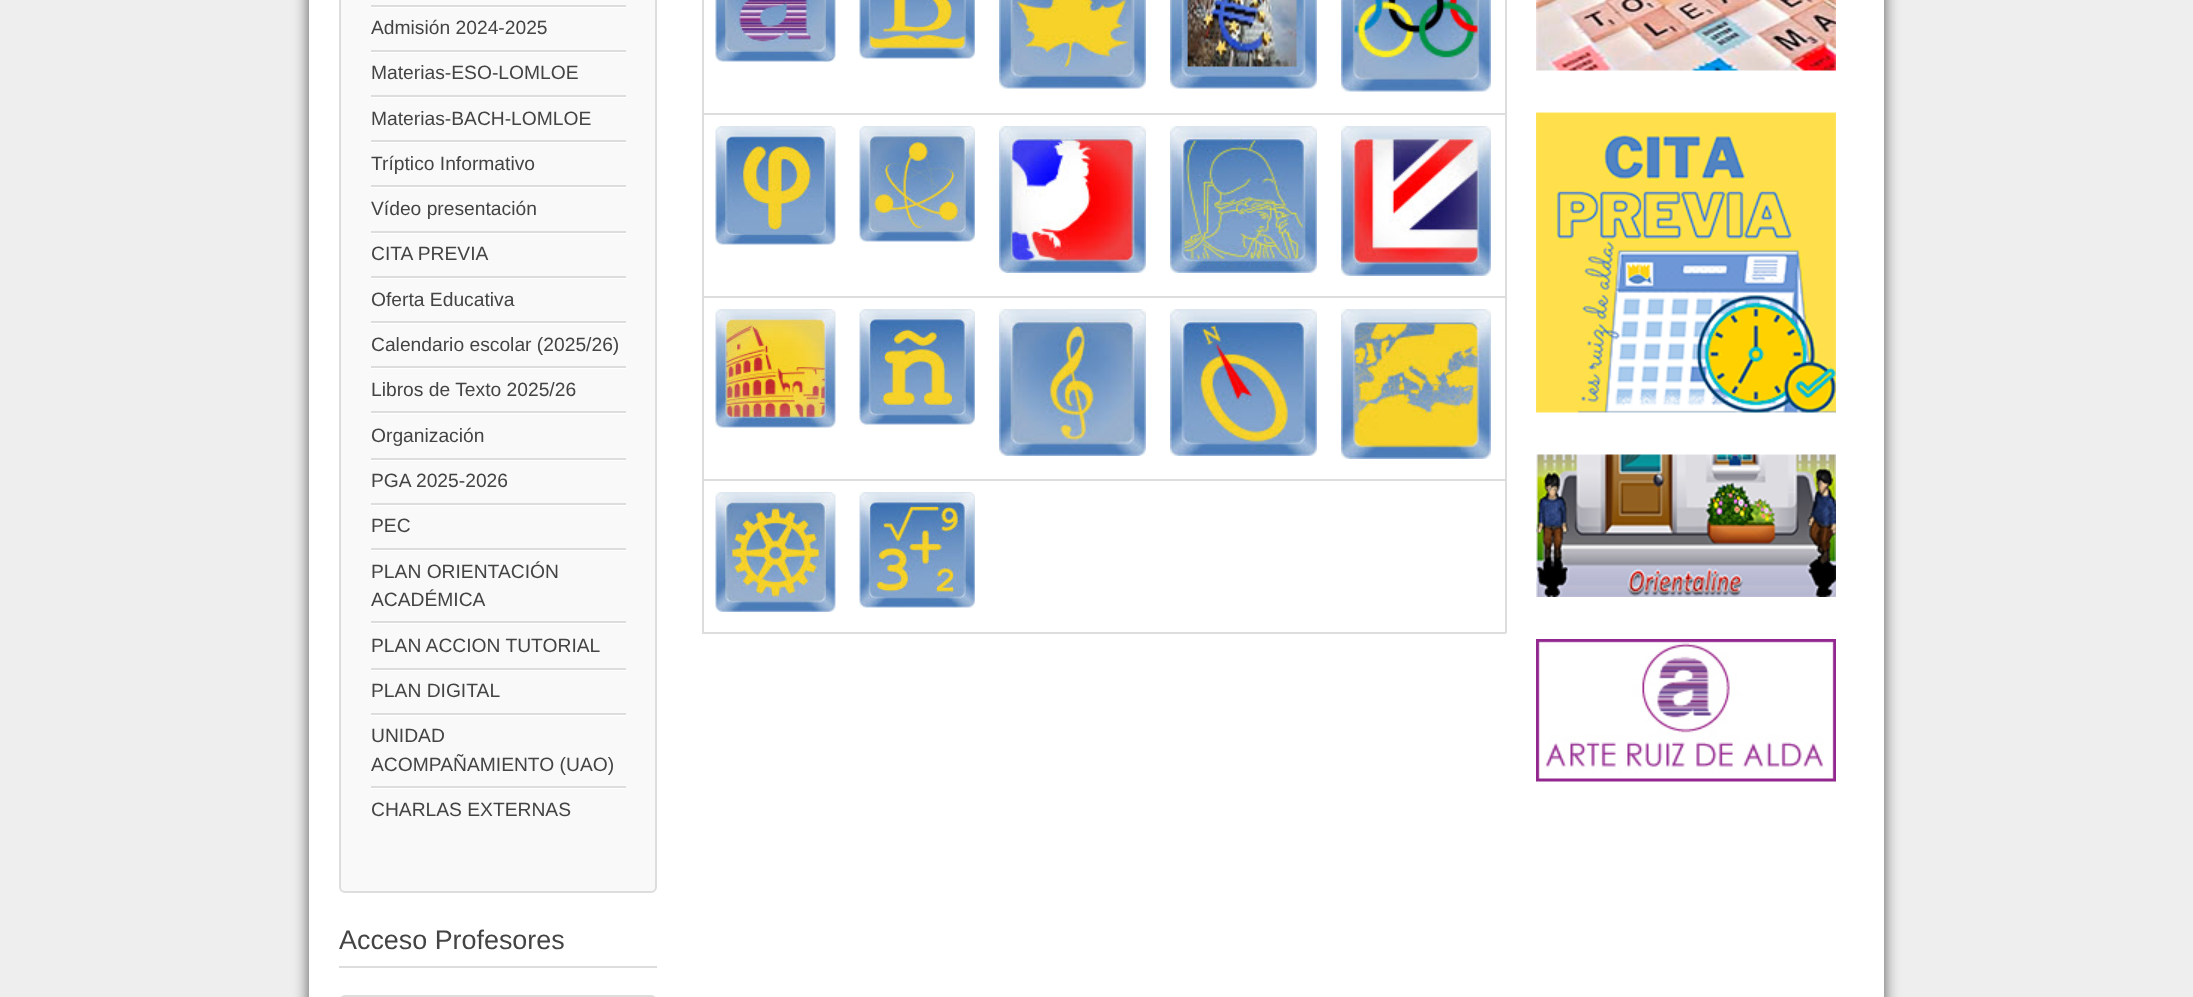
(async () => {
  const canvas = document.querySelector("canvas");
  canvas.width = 2193;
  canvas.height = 997;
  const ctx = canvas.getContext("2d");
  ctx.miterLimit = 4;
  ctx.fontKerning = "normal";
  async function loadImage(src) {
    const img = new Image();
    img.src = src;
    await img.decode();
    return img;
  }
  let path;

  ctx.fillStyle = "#eeeeee";
  ctx.fillRect(0, 0, 2193, 997);
  ctx.fillStyle = "#555555";
  ctx.filter = "blur(7.5px)";
  ctx.beginPath();
  ctx.rect(309, -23, 1575, 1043);
  ctx.fill();
  ctx.filter = "none";
  ctx.fillStyle = "#ffffff";
  ctx.fillRect(309, 0, 1575, 997);
  ctx.fillStyle = "#f9f9f9";
  ctx.beginPath();
  ctx.roundRect(340, -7, 316, 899, 5);
  ctx.fill();
  ctx.strokeStyle = "#dddddd";
  ctx.lineWidth = 2;
  ctx.stroke();
  ctx.fillStyle = "#ffffff";
  path = new Path2D("M371 6V8H626V-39V6Z");
  ctx.fill(path);
  ctx.fillStyle = "#dddddd";
  ctx.fillRect(371, 5, 255, 2);
  ctx.fillStyle = "#ffffff";
  path = new Path2D("M371 51V53H626V8V51Z");
  ctx.fill(path);
  ctx.fillStyle = "#dddddd";
  ctx.fillRect(371, 50, 255, 2);
  ctx.fillStyle = "#ffffff";
  path = new Path2D("M371 96V98H626V53V96Z");
  ctx.fill(path);
  ctx.fillStyle = "#dddddd";
  ctx.fillRect(371, 95, 255, 2);
  ctx.fillStyle = "#ffffff";
  path = new Path2D("M371 141V143H626V98V141Z");
  ctx.fill(path);
  ctx.fillStyle = "#dddddd";
  ctx.fillRect(371, 140, 255, 2);
  ctx.fillStyle = "#ffffff";
  path = new Path2D("M371 186V188H626V143V186Z");
  ctx.fill(path);
  ctx.fillStyle = "#dddddd";
  ctx.fillRect(371, 185, 255, 2);
  ctx.fillStyle = "#ffffff";
  path = new Path2D("M371 232V234H626V188V232Z");
  ctx.fill(path);
  ctx.fillStyle = "#dddddd";
  ctx.fillRect(371, 231, 255, 2);
  ctx.fillStyle = "#ffffff";
  path = new Path2D("M371 278V279H626V234V278Z");
  ctx.fill(path);
  ctx.fillStyle = "#dddddd";
  ctx.fillRect(371, 276, 255, 2);
  ctx.fillStyle = "#ffffff";
  path = new Path2D("M371 322V324H626V279V322Z");
  ctx.fill(path);
  ctx.fillStyle = "#dddddd";
  ctx.fillRect(371, 321, 255, 2);
  ctx.fillStyle = "#ffffff";
  path = new Path2D("M371 368V369H626V324V368Z");
  ctx.fill(path);
  ctx.fillStyle = "#dddddd";
  ctx.fillRect(371, 366, 255, 2);
  ctx.fillStyle = "#ffffff";
  path = new Path2D("M371 412V414H626V369V412Z");
  ctx.fill(path);
  ctx.fillStyle = "#dddddd";
  ctx.fillRect(371, 411, 255, 2);
  ctx.fillStyle = "#ffffff";
  path = new Path2D("M371 459V461H626V414V459Z");
  ctx.fill(path);
  ctx.fillStyle = "#dddddd";
  ctx.fillRect(371, 458, 255, 2);
  ctx.fillStyle = "#ffffff";
  path = new Path2D("M371 504V506H626V461V504Z");
  ctx.fill(path);
  ctx.fillStyle = "#dddddd";
  ctx.fillRect(371, 503, 255, 2);
  ctx.fillStyle = "#ffffff";
  path = new Path2D("M371 549V551H626V506V549Z");
  ctx.fill(path);
  ctx.fillStyle = "#dddddd";
  ctx.fillRect(371, 548, 255, 2);
  ctx.fillStyle = "#ffffff";
  path = new Path2D("M371 622V624H626V551V622Z");
  ctx.fill(path);
  ctx.fillStyle = "#dddddd";
  ctx.fillRect(371, 621, 255, 2);
  ctx.fillStyle = "#ffffff";
  path = new Path2D("M371 669V671H626V624V669Z");
  ctx.fill(path);
  ctx.fillStyle = "#dddddd";
  ctx.fillRect(371, 668, 255, 2);
  ctx.fillStyle = "#ffffff";
  path = new Path2D("M371 714V716H626V671V714Z");
  ctx.fill(path);
  ctx.fillStyle = "#dddddd";
  ctx.fillRect(371, 713, 255, 2);
  ctx.fillStyle = "#ffffff";
  path = new Path2D("M371 788V789H626V716V788Z");
  ctx.fill(path);
  ctx.fillStyle = "#dddddd";
  ctx.fillRect(371, 786, 255, 2);
  ctx.fillRect(339, 966, 318, 2);
  ctx.beginPath();
  ctx.roundRect(340, 996, 316, 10, 7);
  ctx.stroke();
  for (const [x, y, w, h, color] of [
    [1505, 0, 2, 633, "#dddddd"],
    [702, 632, 804, 2, "#dddddd"],
    [702, 0, 2, 633, "#dddddd"],
  ]) {
    ctx.fillStyle = color;
    ctx.fillRect(x, y, w, h);
  }
  ctx.drawImage(await loadImage("img/1.png"), 715, 0, 121, 62);
  ctx.drawImage(await loadImage("img/2.png"), 859, 0, 116, 59);
  ctx.drawImage(await loadImage("img/3.png"), 999, 0, 147, 89);
  ctx.drawImage(await loadImage("img/4.png"), 1170, 0, 147, 89);
  ctx.drawImage(await loadImage("img/5.png"), 1341, 0, 150, 92);
  ctx.fillRect(702, 113, 804, 2);
  ctx.drawImage(await loadImage("img/6.png"), 1341, 126, 150, 150);
  ctx.drawImage(await loadImage("img/7.png"), 715, 126, 121, 119);
  ctx.drawImage(await loadImage("img/8.png"), 859, 126, 116, 116);
  ctx.drawImage(await loadImage("img/9.png"), 999, 126, 147, 147);
  ctx.drawImage(await loadImage("img/10.png"), 1170, 126, 147, 147);
  ctx.fillRect(702, 296, 804, 2);
  ctx.drawImage(await loadImage("img/11.png"), 1341, 309, 150, 150);
  ctx.drawImage(await loadImage("img/12.png"), 715, 309, 121, 119);
  ctx.drawImage(await loadImage("img/13.png"), 859, 309, 116, 116);
  ctx.drawImage(await loadImage("img/14.png"), 999, 309, 147, 147);
  ctx.drawImage(await loadImage("img/15.png"), 1170, 309, 147, 147);
  ctx.fillRect(702, 479, 804, 2);
  ctx.drawImage(await loadImage("img/16.png"), 715, 492, 121, 120);
  ctx.drawImage(await loadImage("img/17.png"), 859, 492, 116, 116);
  ctx.drawImage(await loadImage("img/18.png"), 1536, 0, 300, 71);
  ctx.drawImage(await loadImage("img/19.png"), 1536, 112, 300, 301);
  ctx.drawImage(await loadImage("img/20.png"), 1536, 454, 300, 143);
  ctx.drawImage(await loadImage("img/21.png"), 1536, 639, 300, 143);
  ctx.font = "19.25px Liberation Sans";
  ctx.fillStyle = "#444444";
  for (const [text, x, y] of [
    ["Admisión 2024-2025", 371, 34],
    ["Materias-ESO-LOMLOE", 371, 79],
    ["Materias-BACH-LOMLOE", 371, 125],
    ["Tríptico Informativo", 371, 170],
    ["Vídeo presentación", 371, 215],
    ["CITA PREVIA", 371, 260],
    ["Oferta Educativa", 371, 306],
    ["Calendario escolar (2025/26)", 371, 351],
    ["Libros de Texto 2025/26", 371, 396],
    ["Organización", 371, 442],
    ["PGA 2025-2026", 371, 487],
    ["PEC", 371, 532],
    ["PLAN ORIENTACIÓN", 371, 578],
    ["ACADÉMICA", 371, 606],
    ["PLAN ACCION TUTORIAL", 371, 652],
    ["PLAN DIGITAL", 371, 697],
    ["UNIDAD", 371, 742],
    ["ACOMPAÑAMIENTO (UAO)", 371, 771],
    ["CHARLAS EXTERNAS", 371, 816],
  ]) {
    ctx.fillText(text, x, y);
  }
  ctx.font = "26.9px Liberation Sans";
  ctx.fillText("Acceso Profesores", 339, 949);
})();
